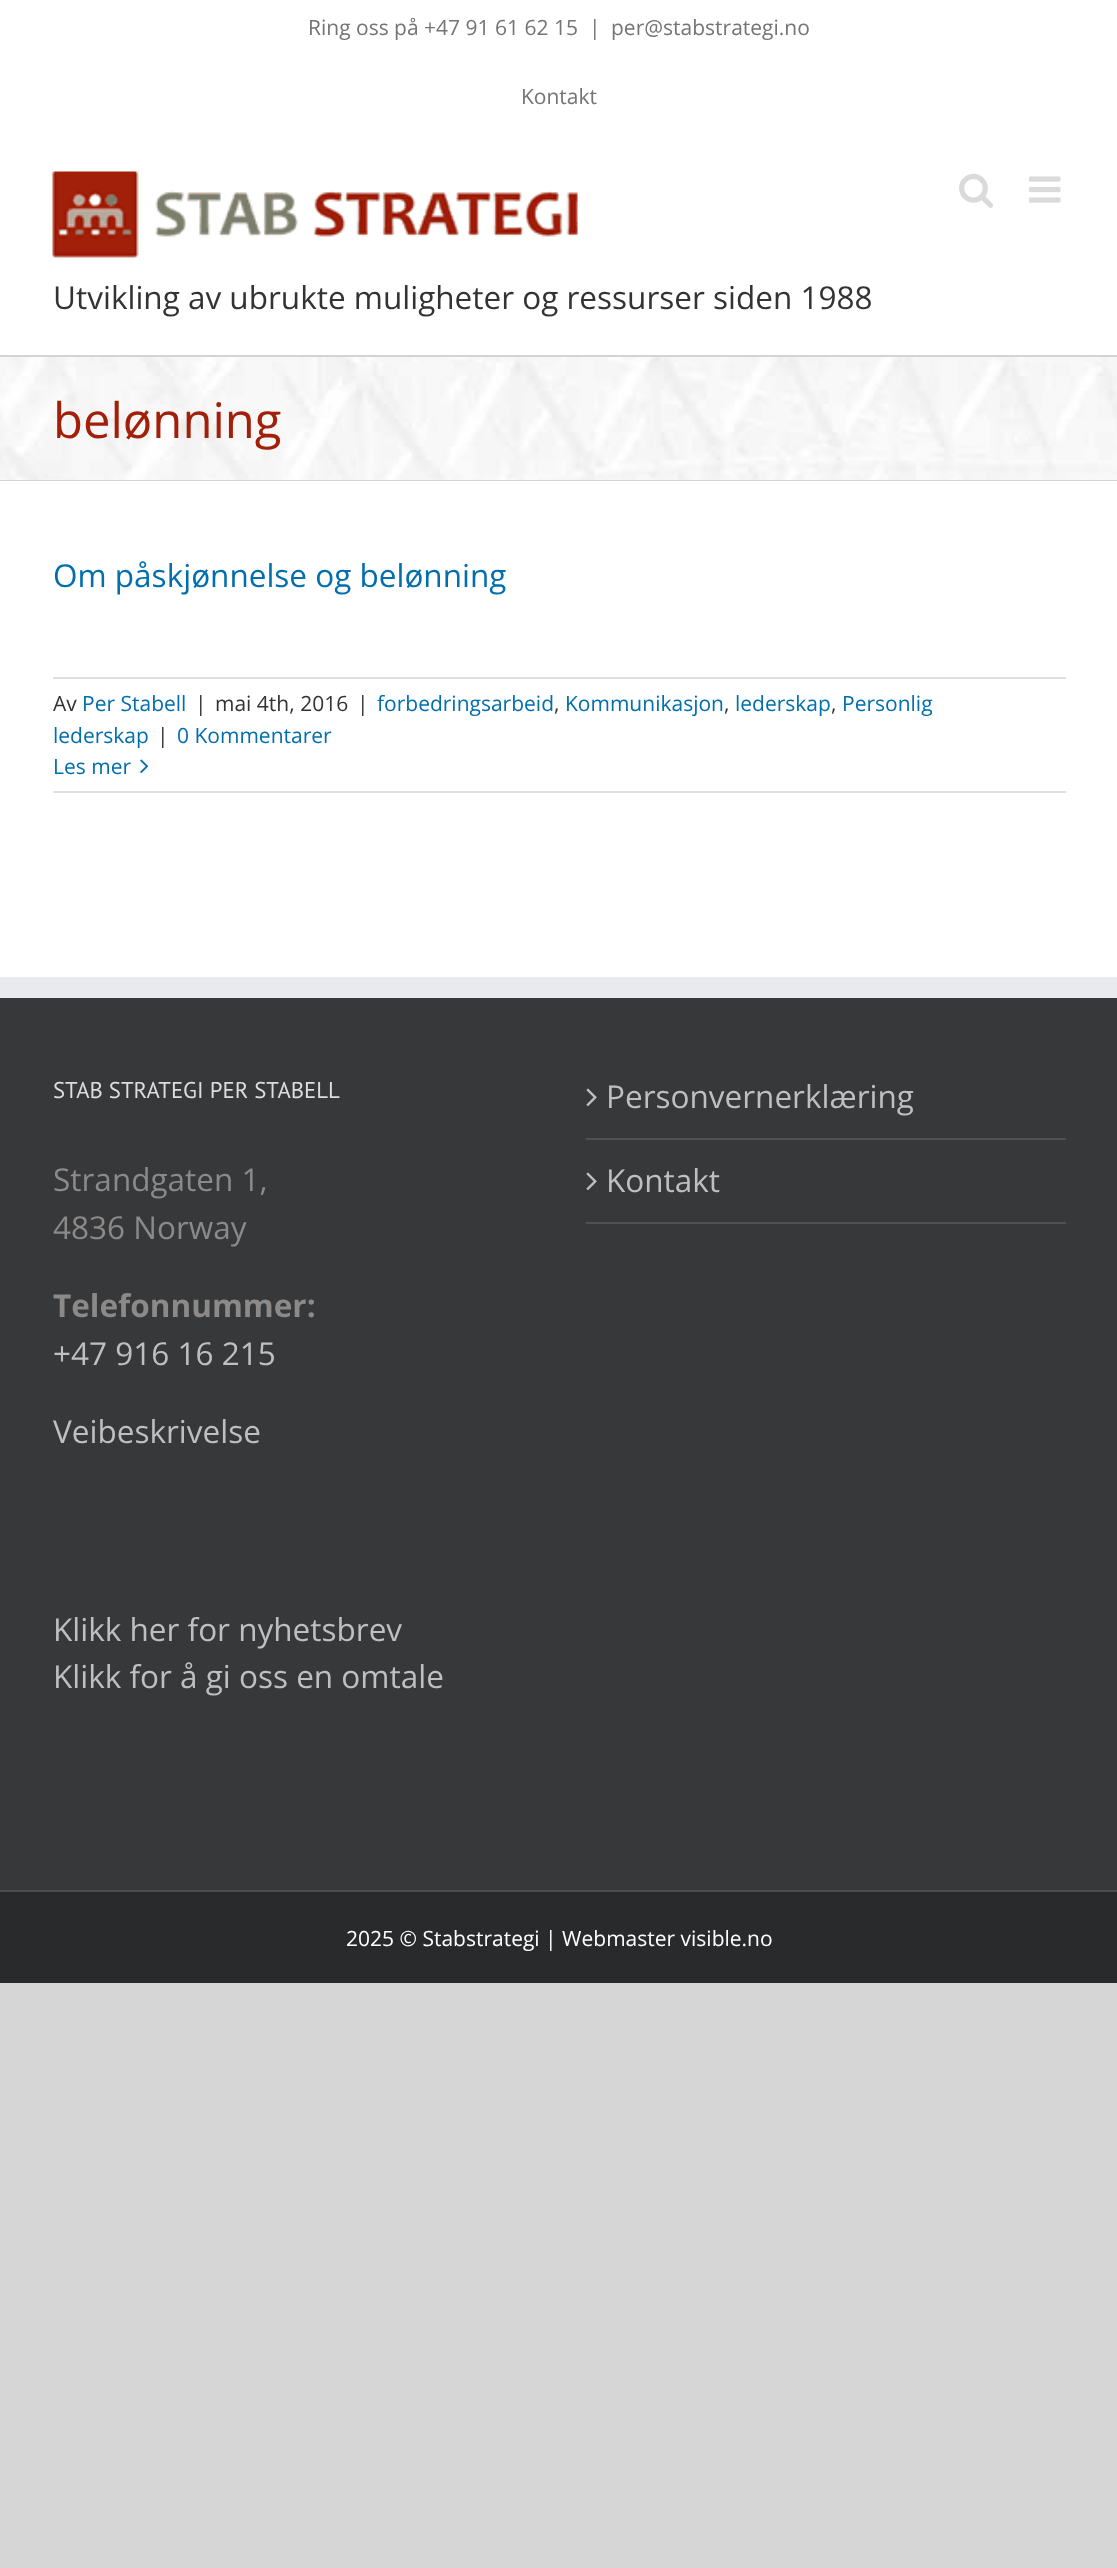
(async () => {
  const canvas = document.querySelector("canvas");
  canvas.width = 1117;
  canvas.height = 2568;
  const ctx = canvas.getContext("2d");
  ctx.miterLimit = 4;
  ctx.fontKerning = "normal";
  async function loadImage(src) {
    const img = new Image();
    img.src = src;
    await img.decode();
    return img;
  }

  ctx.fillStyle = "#d7d6d6";
  ctx.fillRect(0, 0, 1117, 2568);
  ctx.fillStyle = "#ffffff";
  ctx.fillRect(0, 0, 1117, 355);
  ctx.drawImage(await loadImage("img/1.png"), 959, 173, 34, 35);
  ctx.drawImage(await loadImage("img/2.png"), 1029, 176, 32, 27);
  ctx.drawImage(await loadImage("img/3.png"), 52, 171, 526, 87);
  ctx.drawImage(await loadImage("img/4.png"), 0, 357, 1117, 123);
  for (const [x, y, w, h, color] of [
    [0, 355, 1117, 2, "#d2d3d4"],
    [0, 480, 1117, 1, "#d2d3d4"],
    [0, 481, 1117, 496, "#ffffff"],
    [53, 677, 1013, 2, "#e0dede"],
    [53, 791, 1013, 2, "#e0dede"],
  ]) {
    ctx.fillStyle = color;
    ctx.fillRect(x, y, w, h);
  }
  ctx.drawImage(await loadImage("img/5.png"), 140, 759, 9, 15);
  for (const [x, y, w, h, color] of [
    [0, 998, 1117, 892, "#363839"],
    [0, 977, 1117, 21, "#e9eaee"],
    [586, 1138, 480, 2, "#505152"],
  ]) {
    ctx.fillStyle = color;
    ctx.fillRect(x, y, w, h);
  }
  ctx.drawImage(await loadImage("img/6.png"), 586, 1088, 11, 18);
  ctx.fillRect(586, 1222, 480, 2);
  ctx.drawImage(await loadImage("img/6.png"), 586, 1172, 11, 18);
  ctx.fillStyle = "#282a2b";
  ctx.fillRect(0, 1892, 1117, 91);
  ctx.fillStyle = "#4b4c4d";
  ctx.fillRect(0, 1890, 1117, 2);
  ctx.font = "21px Open Sans";
  ctx.fillStyle = "#747474";
  for (const [text, x, y] of [
    ["Ring oss på +47 91 61 62 15", 308, 35],
    ["|", 589, 35],
    ["per@stabstrategi.no", 611, 35],
    ["Kontakt", 521, 104],
  ]) {
    ctx.fillText(text, x, y);
  }
  ctx.font = "31.5px Open Sans";
  ctx.fillStyle = "#333333";
  ctx.fillText("Utvikling av ubrukte muligheter og ressurser siden 1988", 53, 309);
  ctx.font = "49px Open Sans";
  ctx.fillStyle = "#a2200a";
  ctx.fillText("belønning", 53, 438);
  ctx.font = "31.5px Open Sans";
  ctx.fillStyle = "#016ead";
  ctx.fillText("Om påskjønnelse og belønning", 53, 587);
  ctx.font = "21px Open Sans";
  ctx.fillStyle = "#333333";
  ctx.fillText("Av", 53, 711);
  ctx.fillStyle = "#016ead";
  ctx.fillText("Per Stabell", 82, 711);
  ctx.fillStyle = "#333333";
  for (const [text, x, y] of [
    ["|", 195, 711],
    ["mai 4th, 2016", 215, 711],
    ["|", 357, 711],
  ]) {
    ctx.fillText(text, x, y);
  }
  ctx.fillStyle = "#016ead";
  ctx.fillText("forbedringsarbeid", 377, 711);
  ctx.fillStyle = "#333333";
  ctx.fillText(",", 554, 711);
  ctx.fillStyle = "#016ead";
  ctx.fillText("Kommunikasjon", 565, 711);
  ctx.fillStyle = "#333333";
  ctx.fillText(",", 724, 711);
  ctx.fillStyle = "#016ead";
  ctx.fillText("lederskap", 735, 711);
  ctx.fillStyle = "#333333";
  ctx.fillText(",", 831, 711);
  ctx.fillStyle = "#016ead";
  ctx.fillText("Personlig", 842, 711);
  ctx.fillText("lederskap", 53, 743);
  ctx.fillStyle = "#333333";
  ctx.fillText("|", 157, 743);
  ctx.fillStyle = "#016ead";
  ctx.fillText("0 Kommentarer", 177, 743);
  ctx.fillText("Les mer", 53, 774);
  ctx.font = "22.75px PT Sans";
  ctx.fillStyle = "#dddddd";
  ctx.fillText("STAB STRATEGI PER STABELL", 53, 1098);
  ctx.font = "31.5px Open Sans";
  ctx.fillStyle = "#8c8989";
  ctx.fillText("Strandgaten 1,", 53, 1191);
  ctx.fillText("4836 Norway", 53, 1239);
  ctx.font = "bold 31.5px Open Sans";
  ctx.fillText("Telefonnummer:", 53, 1317);
  ctx.font = "31.5px Open Sans";
  ctx.fillStyle = "#bfbfbf";
  for (const [text, x, y] of [
    ["+47 916 16 215", 53, 1365],
    ["Veibeskrivelse", 53, 1443],
    ["Personvernerklæring", 606, 1108],
    ["Kontakt", 606, 1192],
    ["Klikk her for nyhetsbrev", 53, 1641],
    ["Klikk for å gi oss en omtale", 53, 1688],
  ]) {
    ctx.fillText(text, x, y);
  }
  ctx.font = "21px Open Sans";
  ctx.fillStyle = "#ffffff";
  ctx.fillText("2025 © Stabstrategi | Webmaster visible.no", 346, 1946);
})();
